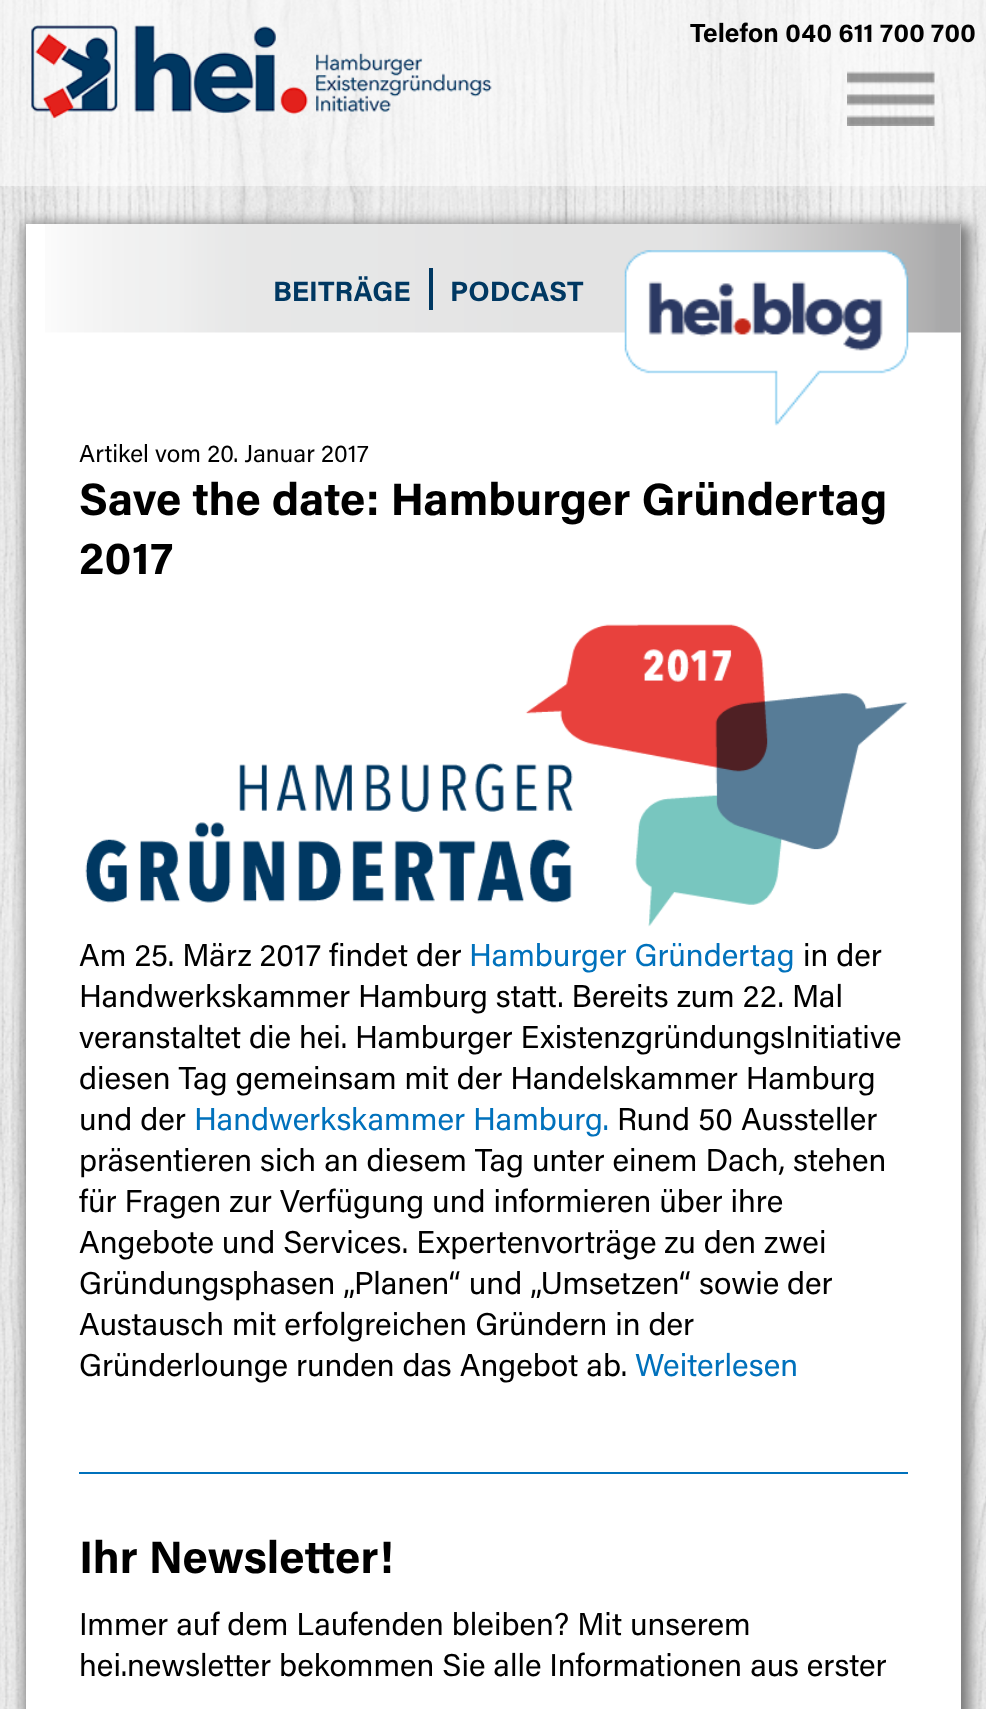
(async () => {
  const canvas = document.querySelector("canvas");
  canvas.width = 986;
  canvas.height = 1709;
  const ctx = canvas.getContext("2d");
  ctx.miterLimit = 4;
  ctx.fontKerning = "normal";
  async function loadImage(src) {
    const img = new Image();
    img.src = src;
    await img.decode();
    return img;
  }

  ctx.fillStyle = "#ffffff";
  ctx.fillRect(0, 0, 986, 1709);
  ctx.drawImage(await loadImage("img/1.png"), 0, 0, 986, 1709);
  ctx.fillStyle = "rgba(255, 255, 255, 0.5)";
  ctx.fillRect(0, 0, 986, 186);
  ctx.drawImage(await loadImage("img/2.png"), 31, 25, 461, 94);
  ctx.drawImage(await loadImage("img/3.png"), 847, 71, 88, 55);
  ctx.fillStyle = "#777777";
  ctx.filter = "blur(7px)";
  ctx.beginPath();
  ctx.rect(25, 224, 945, 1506);
  ctx.fill();
  ctx.filter = "none";
  ctx.fillStyle = "#ffffff";
  ctx.fillRect(26, 224, 935, 1485);
  ctx.drawImage(await loadImage("img/4.png"), 45, 224, 916, 109);
  ctx.fillStyle = "#003862";
  ctx.fillRect(429, 268, 4, 42);
  ctx.drawImage(await loadImage("img/5.png"), 624, 250, 285, 176);
  ctx.fillStyle = "#0071bc";
  ctx.fillRect(79, 1472, 829, 2);
  ctx.drawImage(await loadImage("img/6.png"), 85, 624, 823, 303);
  ctx.font = "bold 26.25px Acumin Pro";
  ctx.fillStyle = "#000000";
  ctx.fillText("Telefon 040 611 700 700", 690, 42);
  ctx.font = "bold 28px Acumin Pro";
  ctx.fillStyle = "#003862";
  ctx.fillText("BEITRÄGE", 273, 301);
  ctx.fillText("PODCAST", 450, 301);
  ctx.font = "24.5px Acumin Pro";
  ctx.fillStyle = "#000000";
  ctx.fillText("Artikel vom 20. Januar 2017", 79, 462);
  ctx.font = "bold 45.5px Acumin Pro";
  ctx.fillText("Save the date: Hamburger Gründertag", 79, 515);
  ctx.fillText("2017", 79, 574);
  ctx.font = "31.5px Acumin Pro";
  ctx.fillText("Am 25. März 2017 findet der", 79, 966);
  ctx.fillStyle = "#0071bc";
  ctx.fillText("Hamburger Gründertag", 469, 966);
  ctx.fillStyle = "#000000";
  for (const [text, x, y] of [
    ["in der", 803, 966],
    ["Handwerkskammer Hamburg statt. Bereits zum 22. Mal", 79, 1007],
    ["veranstaltet die hei. Hamburger ExistenzgründungsInitiative", 79, 1048],
    ["diesen Tag gemeinsam mit der Handelskammer Hamburg", 79, 1089],
    ["und der", 79, 1130],
  ]) {
    ctx.fillText(text, x, y);
  }
  ctx.fillStyle = "#0071bc";
  ctx.fillText("Handwerkskammer Hamburg.", 194, 1130);
  ctx.fillStyle = "#000000";
  for (const [text, x, y] of [
    ["Rund 50 Aussteller", 617, 1130],
    ["präsentieren sich an diesem Tag unter einem Dach, stehen", 79, 1171],
    ["für Fragen zur Verfügung und informieren über ihre", 79, 1212],
    ["Angebote und Services. Expertenvorträge zu den zwei", 79, 1253],
    ["Gründungsphasen „Planen“ und „Umsetzen“ sowie der", 79, 1294],
    ["Austausch mit erfolgreichen Gründern in der", 79, 1335],
    ["Gründerlounge runden das Angebot ab.", 79, 1376],
  ]) {
    ctx.fillText(text, x, y);
  }
  ctx.fillStyle = "#0071bc";
  ctx.fillText("Weiterlesen", 635, 1376);
  ctx.font = "bold 45.5px Acumin Pro";
  ctx.fillStyle = "#000000";
  ctx.fillText("Ihr Newsletter!", 79, 1573);
  ctx.font = "31.5px Acumin Pro";
  ctx.fillText("Immer auf dem Laufenden bleiben? Mit unserem", 79, 1635);
  ctx.fillText("hei.newsletter bekommen Sie alle Informationen aus erster", 79, 1676);
})();
